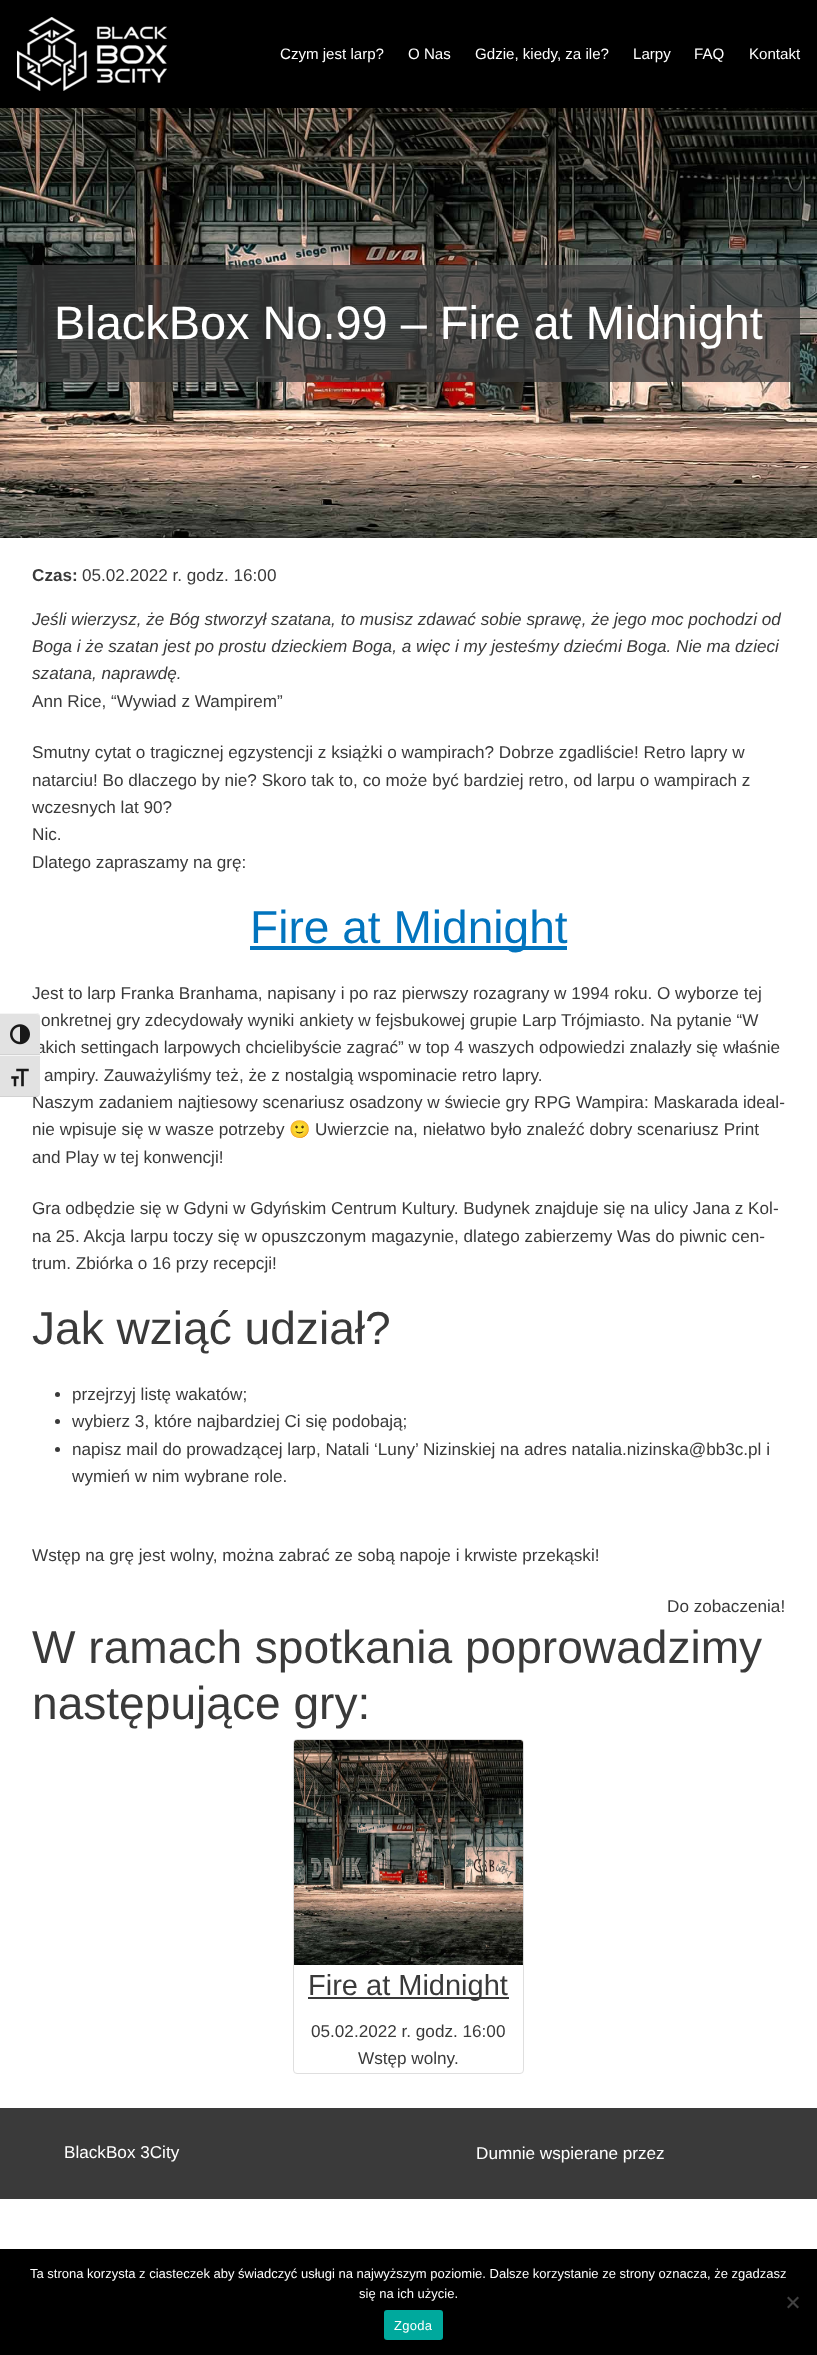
(async () => {
  const canvas = document.querySelector("canvas");
  canvas.width = 817;
  canvas.height = 2355;
  const ctx = canvas.getContext("2d");
  ctx.miterLimit = 4;
  ctx.fontKerning = "normal";
  async function loadImage(src) {
    const img = new Image();
    img.src = src;
    await img.decode();
    return img;
  }
  let path;

  ctx.fillStyle = "#ffffff";
  ctx.fillRect(0, 0, 817, 2355);
  ctx.fillStyle = "#000000";
  ctx.fillRect(0, 0, 817, 108);
  ctx.drawImage(await loadImage("img/3.png"), 17, 17, 150, 74);
  ctx.drawImage(await loadImage("img/4.png"), 0, 108, 817, 430);
  ctx.fillStyle = "rgba(59, 59, 59, 0.76)";
  ctx.fillRect(17, 265, 783, 117);
  ctx.fillStyle = "#0274be";
  ctx.fillRect(250, 946, 317, 4);
  ctx.fillStyle = "#3a3a3a";
  ctx.beginPath();
  ctx.arc(57.5, 1394.5, 2.5, 0, Math.PI * 2);
  ctx.fill();
  ctx.beginPath();
  ctx.arc(57.5, 1421.5, 2.5, 0, Math.PI * 2);
  ctx.fill();
  ctx.beginPath();
  ctx.arc(57.5, 1449.5, 2.5, 0, Math.PI * 2);
  ctx.fill();
  ctx.beginPath();
  ctx.roundRect(293.5, 1739.5, 230, 334, 3.5);
  ctx.strokeStyle = "#dfdfdf";
  ctx.stroke();
  ctx.drawImage(await loadImage("img/5.png"), 294, 1740, 229, 225);
  for (const [x, y, w, h, color] of [
    [308, 1997, 201, 2, "#3a3a3a"],
    [0, 2108, 817, 91, "#3a3a3a"],
    [0, 2249, 817, 106, "#000000"],
  ]) {
    ctx.fillStyle = color;
    ctx.fillRect(x, y, w, h);
  }
  ctx.fillStyle = "#404040";
  path = new Path2D("M797.5 2296.5L799 2298L788.5 2308.5L787 2307Z");
  ctx.fill(path);
  path = new Path2D("M787 2298L788.5 2296.5L799 2307L797.5 2308.5Z");
  ctx.fill(path);
  ctx.fillStyle = "#00a99d";
  ctx.beginPath();
  ctx.roundRect(384, 2310, 59, 30, 3);
  ctx.fill();
  ctx.font = "15.1px Liberation Sans";
  ctx.fillStyle = "#ffffff";
  for (const [text, x, y] of [
    ["Czym jest larp?", 280, 59],
    ["O Nas", 408, 59],
    ["Gdzie, kiedy, za ile?", 475, 59],
    ["Larpy", 633, 59],
    ["FAQ", 694, 59],
    ["Kontakt", 749, 59],
  ]) {
    ctx.fillText(text, x, y);
  }
  ctx.font = "46.9px Liberation Sans";
  ctx.fillText("BlackBox No.99 – Fire at Midnight", 54, 339);
  ctx.font = "bold 17.15px Liberation Sans";
  ctx.fillStyle = "#3a3a3a";
  ctx.fillText("Czas:", 32, 581);
  ctx.font = "17.15px Liberation Sans";
  ctx.fillText("05.02.2022 r. godz. 16:00", 82, 581);
  ctx.font = "italic 17.15px Liberation Sans";
  for (const [text, x, y] of [
    ["Jeśli wierzysz, że Bóg stworzył szatana, to musisz zdawać sobie sprawę, że jego moc pochodzi od", 32, 625],
    ["Boga i że szatan jest po prostu dzieckiem Boga, a więc i my jesteśmy dziećmi Boga. Nie ma dzieci", 32, 652],
    ["szatana, naprawdę.", 32, 679],
  ]) {
    ctx.fillText(text, x, y);
  }
  ctx.font = "17.15px Liberation Sans";
  for (const [text, x, y] of [
    ["Ann Rice, “Wywiad z Wampirem”", 32, 707],
    ["Smutny cytat o tragicznej egzystencji z książki o wampirach? Dobrze zgadliście! Retro lapry w", 32, 758],
    ["natarciu! Bo dlaczego by nie? Skoro tak to, co może być bardziej retro, od larpu o wampirach z", 32, 786],
    ["wczesnych lat 90?", 32, 813],
    ["Nic.", 32, 840],
    ["Dlatego zapraszamy na grę:", 32, 868],
  ]) {
    ctx.fillText(text, x, y);
  }
  ctx.font = "46.1px Liberation Sans";
  ctx.fillStyle = "#0274be";
  ctx.fillText("Fire at Midnight", 250, 943);
  ctx.font = "17.15px Liberation Sans";
  ctx.fillStyle = "#3a3a3a";
  for (const [text, x, y] of [
    ["Jest to larp Franka Branhama, napisany i po raz pierwszy rozagrany w 1994 roku. O wyborze tej", 32, 999],
    ["onkretnej gry zdecydowały wyniki ankiety w fejsbukowej grupie Larp Trójmiasto. Na pytanie “W", 41, 1026],
    ["akich settingach larpowych chcielibyście zagrać” w top 4 waszych odpowiedzi znalazły się właśnie", 36, 1053],
  ]) {
    ctx.fillText(text, x, y);
  }
  ctx.fillStyle = "#e2e2e2";
  ctx.beginPath();
  ctx.roundRect(0, 1013, 40, 42, [0, 4, 0, 0]);
  ctx.fill();
  ctx.drawImage(await loadImage("img/1.png"), 10, 1024, 20, 21);
  ctx.fillStyle = "#d2d2d2";
  ctx.fillRect(0, 1054, 40, 1);
  ctx.fillStyle = "#f5f5f5";
  path = new Path2D("M0 1013V1014H36C38 1014 40 1015 40 1017C40 1015 38 1013 36 1013Z");
  ctx.fill(path);
  ctx.fillStyle = "#3a3a3a";
  ctx.fillText("ampiry. Zauważyliśmy też, że z nostalgią wspominacie retro lapry.", 44, 1081);
  ctx.fillText("Naszym zadaniem najtiesowy scenariusz osadzony w świecie gry RPG Wampira: Maskarada ideal-", 32, 1108);
  ctx.fillStyle = "#e2e2e2";
  ctx.beginPath();
  ctx.roundRect(0, 1055, 40, 42, [0, 0, 4, 0]);
  ctx.fill();
  ctx.drawImage(await loadImage("img/2.png"), 11, 1068, 18, 19);
  ctx.fillStyle = "#d2d2d2";
  path = new Path2D("M0 1096V1097H36C38 1097 40 1095 40 1093C40 1095 38 1096 36 1096Z");
  ctx.fill(path);
  ctx.fillStyle = "#f5f5f5";
  ctx.fillRect(0, 1055, 40, 1);
  ctx.fillStyle = "#3a3a3a";
  ctx.fillText("nie wpisuje się w wasze potrzeby", 32, 1135);
  ctx.font = "17.15px Noto Color Emoji";
  ctx.fillText("🙂", 289, 1135);
  ctx.font = "17.15px Liberation Sans";
  for (const [text, x, y] of [
    ["Uwierzcie na, niełatwo było znaleźć dobry scenariusz Print", 315, 1135],
    ["and Play w tej konwencji!", 32, 1163],
    ["Gra odbędzie się w Gdyni w Gdyńskim Centrum Kultury. Budynek znajduje się na ulicy Jana z Kol-", 32, 1214],
    ["na 25. Akcja larpu toczy się w opuszczonym magazynie, dlatego zabierzemy Was do piwnic cen-", 32, 1242],
    ["trum. Zbiórka o 16 przy recepcji!", 32, 1269],
  ]) {
    ctx.fillText(text, x, y);
  }
  ctx.font = "46.1px Liberation Sans";
  ctx.fillText("Jak wziąć udział?", 32, 1344);
  ctx.font = "17.15px Liberation Sans";
  for (const [text, x, y] of [
    ["przejrzyj listę wakatów;", 72, 1400],
    ["wybierz 3, które najbardziej Ci się podobają;", 72, 1427],
    ["napisz mail do prowadzącej larp, Natali ‘Luny’ Nizinskiej na adres natalia.nizinska@bb3c.pl i", 72, 1455],
    ["wymień w nim wybrane role.", 72, 1482],
    ["Wstęp na grę jest wolny, można zabrać ze sobą napoje i krwiste przekąski!", 32, 1561],
    ["Do zobaczenia!", 667, 1612],
  ]) {
    ctx.fillText(text, x, y);
  }
  ctx.font = "46.1px Liberation Sans";
  ctx.fillText("W ramach spotkania poprowadzimy", 32, 1663);
  ctx.fillText("następujące gry:", 32, 1719);
  ctx.font = "29px Liberation Sans";
  ctx.fillText("Fire at Midnight", 308, 1995);
  ctx.font = "17.15px Liberation Sans";
  ctx.fillText("05.02.2022 r. godz. 16:00", 311, 2037);
  ctx.fillText("Wstęp wolny.", 358, 2064);
  ctx.fillStyle = "#ffffff";
  ctx.fillText("BlackBox 3City", 64, 2158);
  ctx.fillText("Dumnie wspierane przez", 476, 2159);
  ctx.font = "13px Liberation Sans";
  ctx.fillText("Ta strona korzysta z ciasteczek aby świadczyć usługi na najwyższym poziomie. Dalsze korzystanie ze strony oznacza, że zgadzasz", 30, 2278);
  ctx.fillText("się na ich użycie.", 359, 2298);
  ctx.letterSpacing = "0.25px";
  ctx.fillText("Zgoda", 394, 2330);
})();
